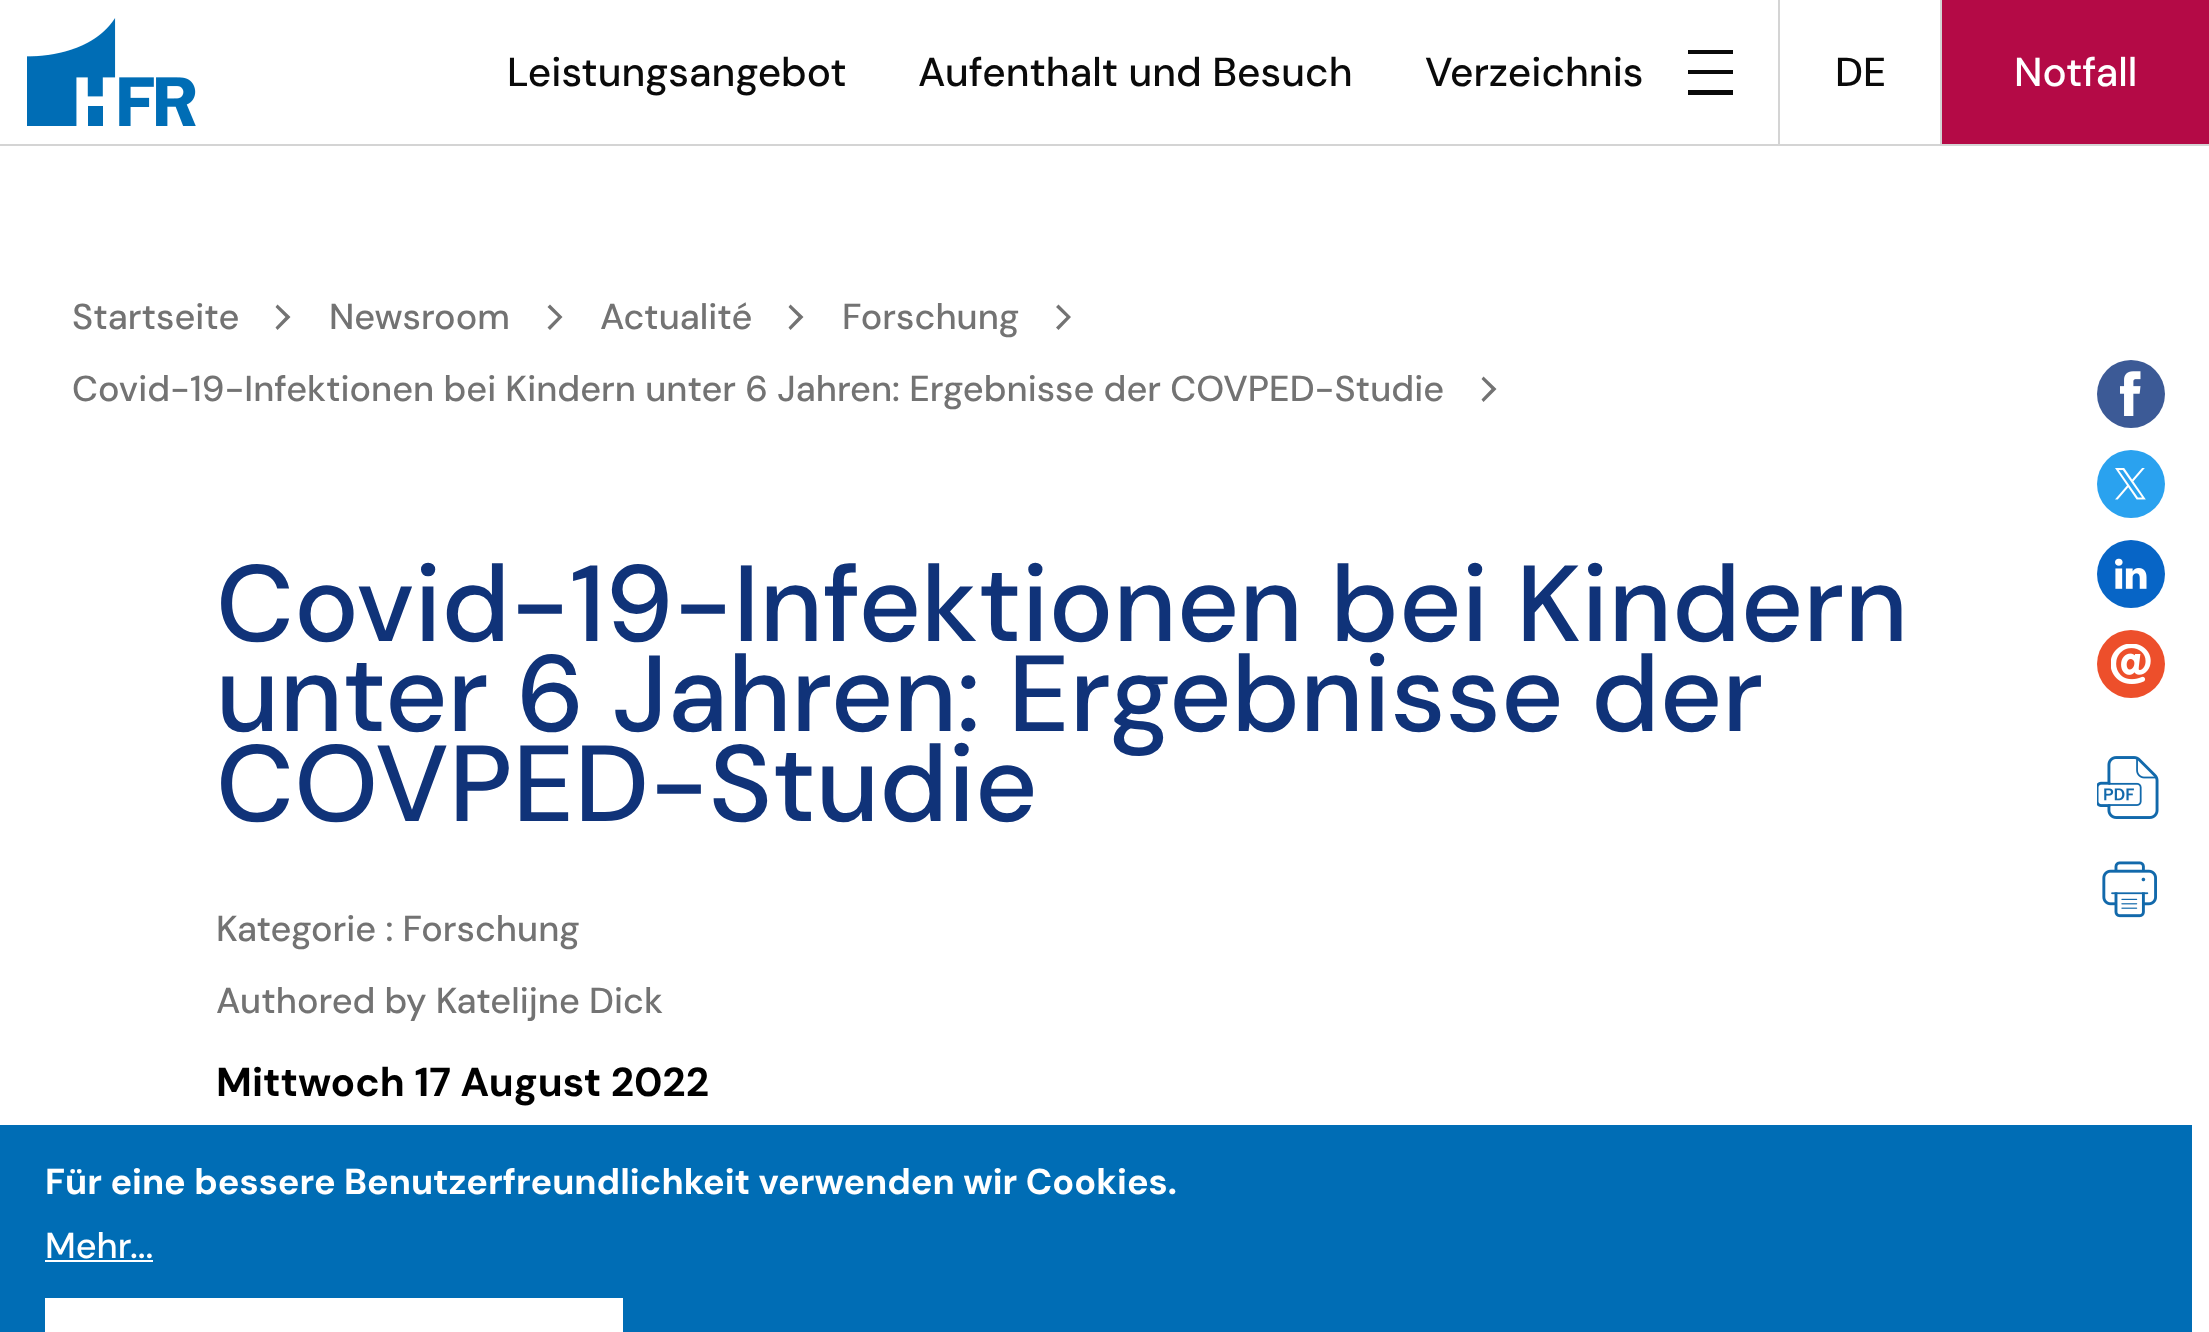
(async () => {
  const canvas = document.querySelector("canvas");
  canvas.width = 2209;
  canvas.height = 1332;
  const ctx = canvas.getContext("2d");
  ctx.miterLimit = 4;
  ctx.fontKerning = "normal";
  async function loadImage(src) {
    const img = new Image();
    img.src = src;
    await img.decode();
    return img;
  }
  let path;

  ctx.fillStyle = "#ffffff";
  ctx.fillRect(0, 0, 2209, 1332);
  ctx.fillStyle = "#d4d4d4";
  ctx.fillRect(0, 144, 2209, 2);
  ctx.drawImage(await loadImage("img/1.png"), 27, 18, 169, 108);
  for (const [x, y, w, h, color] of [
    [1688, 50, 45, 4, "#0a0a0a"],
    [1688, 90, 45, 5, "#0a0a0a"],
    [1688, 70, 45, 4, "#0a0a0a"],
    [1940, 0, 2, 144, "#d4d4d4"],
    [1778, 0, 2, 144, "#d4d4d4"],
    [1942, 0, 267, 144, "#b40a46"],
  ]) {
    ctx.fillStyle = color;
    ctx.fillRect(x, y, w, h);
  }
  ctx.fillStyle = "#737373";
  path = new Path2D("M285.5 317L275.5 307L277.5 304.5L290.5 317L277.5 330L275.5 327.5Z");
  ctx.fill(path);
  path = new Path2D("M558 317L547.5 307L550 304.5L562.5 317L550 330L547.5 327.5Z");
  ctx.fill(path);
  path = new Path2D("M798.5 317L788.5 307L790.5 304.5L803.5 317L790.5 330L788.5 327.5Z");
  ctx.fill(path);
  path = new Path2D("M1066.5 317L1056 307L1058.5 304.5L1071 317L1058.5 330L1056 327.5Z");
  ctx.fill(path);
  path = new Path2D("M1491.5 389L1481.5 379L1483.5 376.5L1496.5 389L1483.5 402L1481.5 399.5Z");
  ctx.fill(path);
  ctx.fillStyle = "#3c5a96";
  ctx.beginPath();
  ctx.arc(2131, 394, 34, 0, Math.PI * 2);
  ctx.fill();
  ctx.drawImage(await loadImage("img/2.png"), 2120, 371, 21, 45);
  ctx.fillStyle = "#2aa2ef";
  ctx.beginPath();
  ctx.arc(2131, 484, 34, 0, Math.PI * 2);
  ctx.fill();
  ctx.drawImage(await loadImage("img/3.png"), 2115, 468, 31, 32);
  ctx.fillStyle = "#0765c6";
  ctx.beginPath();
  ctx.arc(2131, 574, 34, 0, Math.PI * 2);
  ctx.fill();
  ctx.drawImage(await loadImage("img/4.png"), 2115, 558, 32, 31);
  ctx.fillStyle = "#ed4f2b";
  ctx.beginPath();
  ctx.arc(2131, 664, 34, 0, Math.PI * 2);
  ctx.fill();
  ctx.drawImage(await loadImage("img/5.png"), 2111, 644, 40, 40);
  ctx.drawImage(await loadImage("img/6.png"), 2097, 756, 62, 63);
  ctx.drawImage(await loadImage("img/7.png"), 2102, 861, 55, 57);
  for (const [x, y, w, h, color] of [
    [0, 1125, 2192, 207, "#006db5"],
    [45, 1260, 108, 2, "#ffffff"],
    [45, 1298, 578, 34, "#ffffff"],
  ]) {
    ctx.fillStyle = color;
    ctx.fillRect(x, y, w, h);
  }
  ctx.font = "500 40.5px DM Sans";
  ctx.fillStyle = "#0a0a0a";
  for (const [text, x, y] of [
    ["Leistungsangebot", 507, 86],
    ["Aufenthalt und Besuch", 918, 86],
    ["Verzeichnis", 1425, 86],
    ["DE", 1835, 86],
  ]) {
    ctx.fillText(text, x, y);
  }
  ctx.fillStyle = "#ffffff";
  ctx.fillText("Notfall", 2014, 86);
  ctx.font = "500 36px DM Sans";
  ctx.fillStyle = "#737373";
  for (const [text, x, y] of [
    ["Startseite", 72, 329],
    ["Newsroom", 329, 329],
    ["Actualité", 600, 329],
    ["Forschung", 842, 329],
    ["Covid-19-Infektionen bei Kindern unter 6 Jahren: Ergebnisse der COVPED-Studie", 72, 401],
  ]) {
    ctx.fillText(text, x, y);
  }
  ctx.font = "500 108px DM Sans";
  ctx.fillStyle = "#103379";
  for (const [text, x, y] of [
    ["Covid-19-Infektionen bei Kindern", 216, 641],
    ["unter 6 Jahren: Ergebnisse der", 216, 731],
    ["COVPED-Studie", 216, 821],
  ]) {
    ctx.fillText(text, x, y);
  }
  ctx.font = "500 36px DM Sans";
  ctx.fillStyle = "#737373";
  ctx.fillText("Kategorie : Forschung", 216, 941);
  ctx.fillText("Authored by Katelijne Dick", 216, 1013);
  ctx.font = "bold 40.5px DM Sans";
  ctx.fillStyle = "#000000";
  ctx.fillText("Mittwoch 17 August 2022", 216, 1096);
  ctx.font = "bold 36px DM Sans";
  ctx.fillStyle = "#ffffff";
  ctx.fillText("Für eine bessere Benutzerfreundlichkeit verwenden wir Cookies.", 45, 1194);
  ctx.font = "500 36px DM Sans";
  ctx.fillText("Mehr...", 45, 1258);
})();
